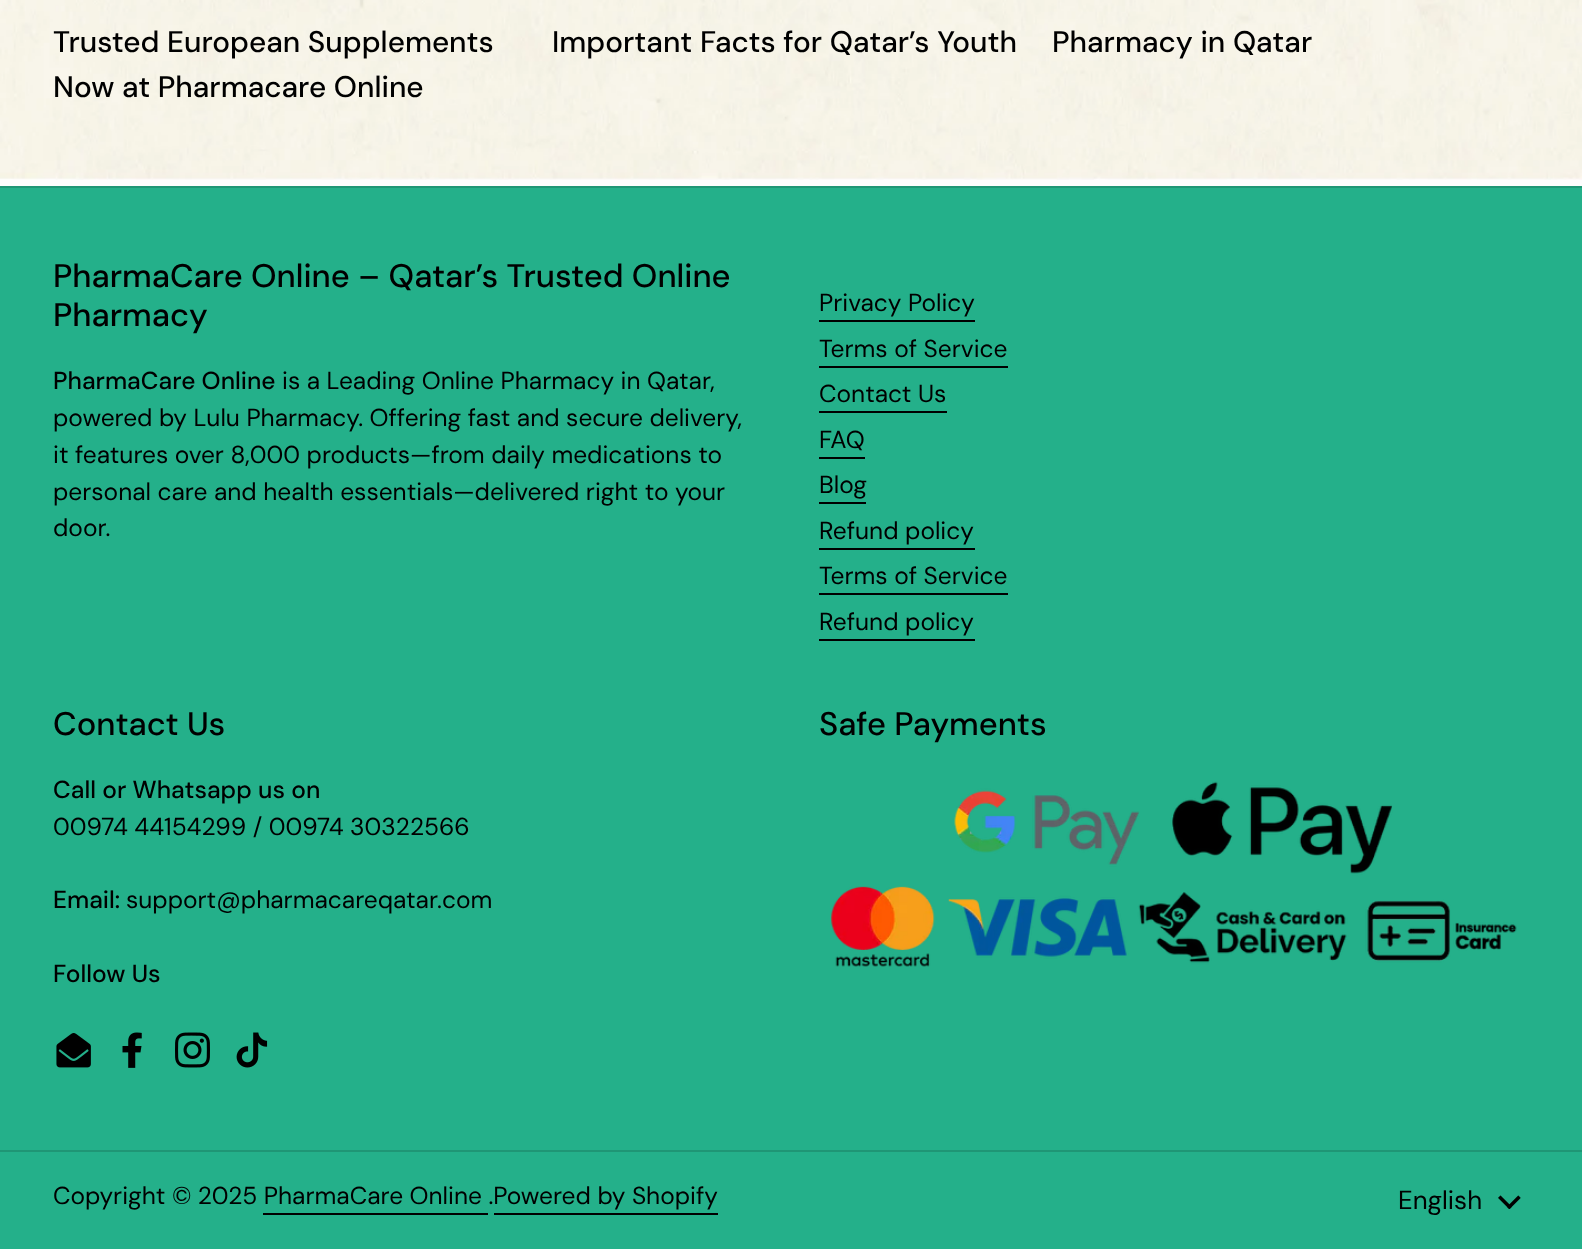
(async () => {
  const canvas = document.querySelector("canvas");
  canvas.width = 1582;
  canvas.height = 1249;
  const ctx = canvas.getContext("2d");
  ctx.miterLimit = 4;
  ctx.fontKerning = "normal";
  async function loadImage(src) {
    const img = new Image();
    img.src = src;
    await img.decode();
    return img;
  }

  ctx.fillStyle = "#fdfdfd";
  ctx.fillRect(0, 0, 1582, 1249);
  ctx.drawImage(await loadImage("img/1.png"), 0, 0, 1582, 180);
  for (const [x, y, w, h, color] of [
    [0, 188, 1582, 1061, "#24b08a"],
    [0, 186, 1582, 2, "#1f9675"],
    [819, 320, 156, 2, "#000000"],
    [819, 366, 189, 2, "#000000"],
    [819, 411, 128, 2, "#000000"],
    [819, 457, 46, 2, "#000000"],
    [819, 502, 47, 2, "#000000"],
    [819, 548, 156, 2, "#000000"],
    [819, 593, 189, 2, "#000000"],
    [819, 639, 156, 2, "#000000"],
  ]) {
    ctx.fillStyle = color;
    ctx.fillRect(x, y, w, h);
  }
  ctx.drawImage(await loadImage("img/2.png"), 56, 1033, 35, 35);
  ctx.drawImage(await loadImage("img/3.png"), 122, 1032, 20, 36);
  ctx.drawImage(await loadImage("img/4.png"), 175, 1032, 35, 36);
  ctx.drawImage(await loadImage("img/5.png"), 236, 1032, 32, 36);
  ctx.drawImage(await loadImage("img/6.png"), 831, 781, 686, 186);
  for (const [x, y, w, h, color] of [
    [0, 1150, 1582, 2, "#1f9675"],
    [263, 1213, 225, 2, "#000000"],
    [494, 1213, 224, 2, "#000000"],
  ]) {
    ctx.fillStyle = color;
    ctx.fillRect(x, y, w, h);
  }
  ctx.drawImage(await loadImage("img/7.png"), 1498, 1195, 23, 14);
  ctx.font = "500 29.75px DM Sans";
  for (const [text, x, y] of [
    ["Trusted European Supplements", 53, 52],
    ["Now at Pharmacare Online", 53, 97],
    ["Important Facts for Qatar’s Youth", 552, 52],
    ["Pharmacy in Qatar", 1052, 52],
  ]) {
    ctx.fillText(text, x, y);
  }
  ctx.font = "500 32.7px 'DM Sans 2'";
  ctx.fillText("PharmaCare Online – Qatar’s Trusted Online", 53, 287);
  ctx.fillText("Pharmacy", 53, 326);
  ctx.font = "500 24.5px 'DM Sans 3'";
  ctx.fillText("PharmaCare Online", 53, 389);
  ctx.font = "24.5px DM Sans";
  for (const [text, x, y] of [
    ["is a Leading Online Pharmacy in Qatar,", 282, 389],
    ["powered by Lulu Pharmacy. Offering fast and secure delivery,", 53, 426],
    ["it features over 8,000 products—from daily medications to", 53, 463],
    ["personal care and health essentials—delivered right to your", 53, 500],
    ["door.", 53, 536],
    ["Privacy Policy", 819, 311],
    ["Terms of Service", 819, 357],
    ["Contact Us", 819, 402],
    ["FAQ", 819, 448],
    ["Blog", 819, 493],
    ["Refund policy", 819, 539],
    ["Terms of Service", 819, 584],
    ["Refund policy", 819, 630],
  ]) {
    ctx.fillText(text, x, y);
  }
  ctx.font = "500 32.7px 'DM Sans 2'";
  ctx.fillText("Contact Us", 53, 735);
  ctx.font = "500 24.5px 'DM Sans 3'";
  ctx.fillText("Call or Whatsapp us on", 53, 798);
  ctx.font = "24.5px DM Sans";
  ctx.fillText("00974 44154299 / 00974 30322566", 53, 835);
  ctx.font = "500 24.5px 'DM Sans 3'";
  ctx.fillText("Email:", 53, 908);
  ctx.font = "24.5px DM Sans";
  ctx.fillText("support@pharmacareqatar.com", 126, 908);
  ctx.font = "500 24.5px 'DM Sans 3'";
  ctx.fillText("Follow Us", 53, 982);
  ctx.font = "500 32.7px 'DM Sans 2'";
  ctx.fillText("Safe Payments", 819, 735);
  ctx.font = "24.5px DM Sans";
  ctx.fillText("Copyright © 2025 PharmaCare Online .Powered by Shopify", 53, 1204);
  ctx.font = "26px 'DM Sans 2'";
  ctx.fillText("English", 1398, 1209);
})();
